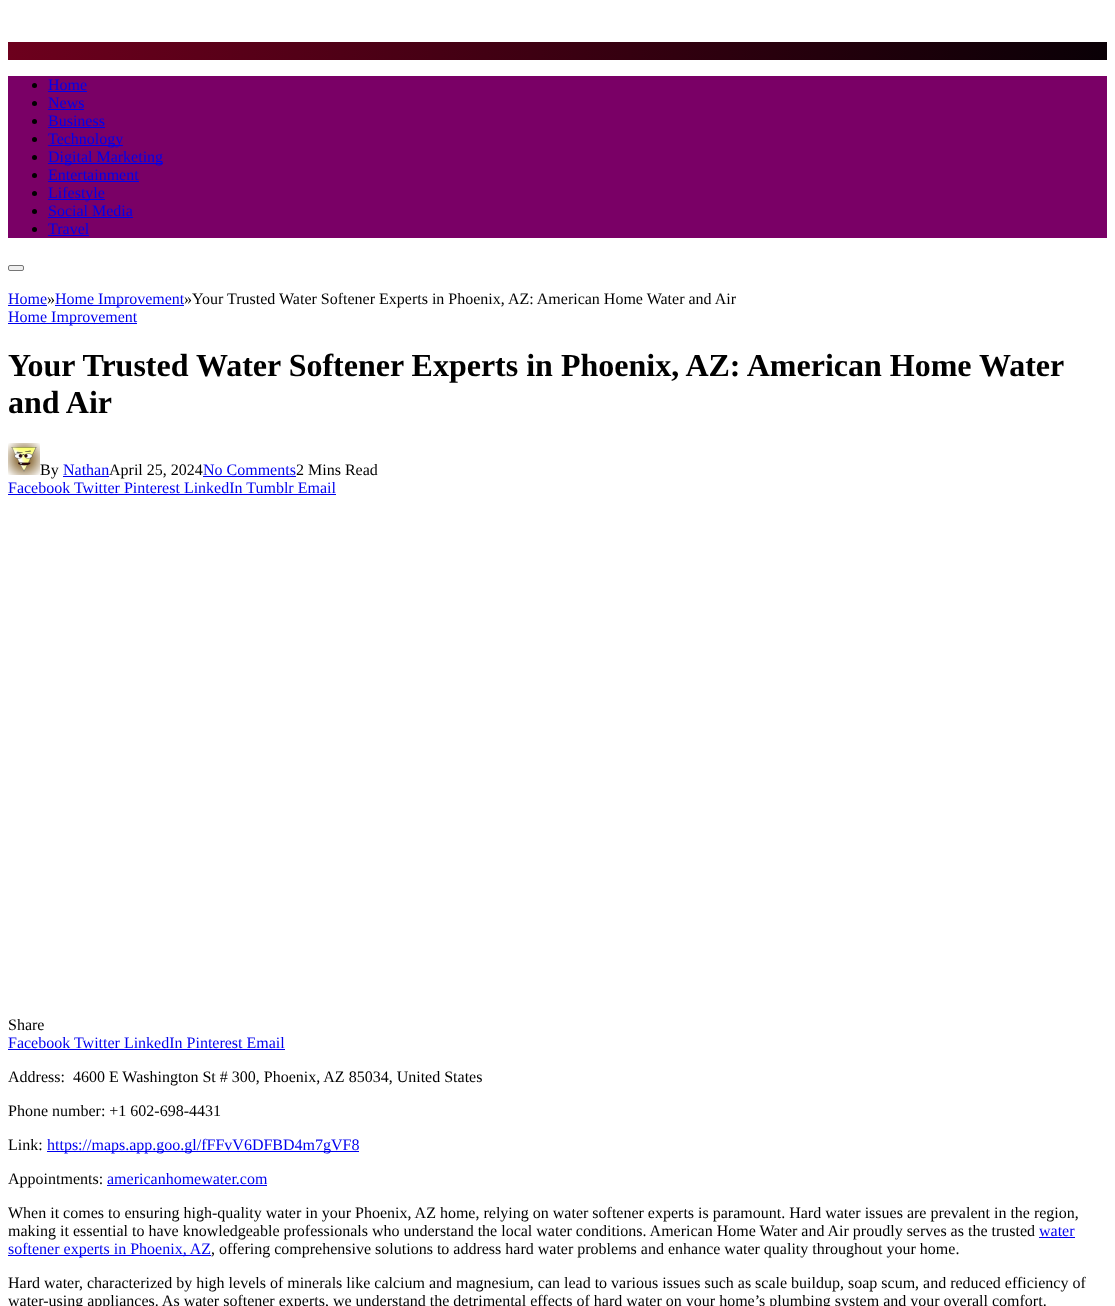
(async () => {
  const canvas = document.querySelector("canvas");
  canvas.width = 1115;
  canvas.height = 1306;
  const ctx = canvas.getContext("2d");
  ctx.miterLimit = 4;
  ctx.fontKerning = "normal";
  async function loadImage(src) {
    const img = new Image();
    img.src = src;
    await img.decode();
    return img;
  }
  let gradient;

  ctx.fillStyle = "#ffffff";
  ctx.fillRect(0, 0, 1115, 1306);
  gradient = ctx.createLinearGradient(8, 51, 1107, 51);
  gradient.addColorStop(0, "#6d001d");
  gradient.addColorStop(1, "#0a0006");
  ctx.fillStyle = gradient;
  ctx.fillRect(8, 42, 1099, 18);
  ctx.fillStyle = "#7a0066";
  ctx.fillRect(8, 76, 1099, 162);
  ctx.fillStyle = "#000000";
  ctx.beginPath();
  ctx.arc(34.5, 85.5, 2.5, 0, Math.PI * 2);
  ctx.fill();
  ctx.fillStyle = "#0000ee";
  ctx.fillRect(48, 91, 39, 1);
  ctx.fillStyle = "#000000";
  ctx.beginPath();
  ctx.arc(34.5, 103.5, 2.5, 0, Math.PI * 2);
  ctx.fill();
  ctx.fillStyle = "#0000ee";
  ctx.fillRect(48, 109, 36, 1);
  ctx.fillStyle = "#000000";
  ctx.beginPath();
  ctx.arc(34.5, 121.5, 2.5, 0, Math.PI * 2);
  ctx.fill();
  ctx.fillStyle = "#0000ee";
  ctx.fillRect(48, 127, 57, 1);
  ctx.fillStyle = "#000000";
  ctx.beginPath();
  ctx.arc(34.5, 139.5, 2.5, 0, Math.PI * 2);
  ctx.fill();
  ctx.fillStyle = "#0000ee";
  ctx.fillRect(48, 145, 75, 1);
  ctx.fillStyle = "#000000";
  ctx.beginPath();
  ctx.arc(34.5, 157.5, 2.5, 0, Math.PI * 2);
  ctx.fill();
  ctx.fillStyle = "#0000ee";
  ctx.fillRect(48, 163, 115, 1);
  ctx.fillStyle = "#000000";
  ctx.beginPath();
  ctx.arc(34.5, 175.5, 2.5, 0, Math.PI * 2);
  ctx.fill();
  ctx.fillStyle = "#0000ee";
  ctx.fillRect(48, 181, 91, 1);
  ctx.fillStyle = "#000000";
  ctx.beginPath();
  ctx.arc(34.5, 193.5, 2.5, 0, Math.PI * 2);
  ctx.fill();
  ctx.fillStyle = "#0000ee";
  ctx.fillRect(48, 199, 57, 1);
  ctx.fillStyle = "#000000";
  ctx.beginPath();
  ctx.arc(34.5, 211.5, 2.5, 0, Math.PI * 2);
  ctx.fill();
  ctx.fillStyle = "#0000ee";
  ctx.fillRect(48, 217, 85, 1);
  ctx.fillStyle = "#000000";
  ctx.beginPath();
  ctx.arc(34.5, 229.5, 2.5, 0, Math.PI * 2);
  ctx.fill();
  ctx.fillStyle = "#0000ee";
  ctx.fillRect(48, 235, 41, 1);
  ctx.fillStyle = "#efefef";
  ctx.beginPath();
  ctx.roundRect(8.5, 265.5, 15, 5, 1.5);
  ctx.fill();
  ctx.strokeStyle = "#767676";
  ctx.stroke();
  for (const [x, y, w, h, color] of [
    [8, 305, 39, 1, "#0000ee"],
    [55, 305, 129, 1, "#0000ee"],
    [8, 323, 129, 1, "#0000ee"],
  ]) {
    ctx.fillStyle = color;
    ctx.fillRect(x, y, w, h);
  }
  ctx.drawImage(await loadImage("img/1.png"), 8, 443, 32, 32);
  for (const [x, y, w, h, color] of [
    [63, 476, 46, 1, "#0000ee"],
    [203, 476, 93, 1, "#0000ee"],
    [8, 494, 328, 1, "#0000ee"],
    [8, 1049, 277, 1, "#0000ee"],
    [47, 1151, 312, 1, "#0000ee"],
    [107, 1185, 160, 1, "#0000ee"],
    [1039, 1237, 36, 1, "#0000ee"],
    [8, 1255, 203, 1, "#0000ee"],
  ]) {
    ctx.fillStyle = color;
    ctx.fillRect(x, y, w, h);
  }
  ctx.font = "16px Liberation Serif";
  for (const [text, x, y] of [
    ["Home", 48, 90],
    ["News", 48, 108],
    ["Business", 48, 126],
    ["Technology", 48, 144],
    ["Digital Marketing", 48, 162],
    ["Entertainment", 48, 180],
    ["Lifestyle", 48, 198],
    ["Social Media", 48, 216],
    ["Travel", 48, 234],
    ["Home", 8, 304],
  ]) {
    ctx.fillText(text, x, y);
  }
  ctx.fillStyle = "#000000";
  ctx.fillText("»", 47, 304);
  ctx.fillStyle = "#0000ee";
  ctx.fillText("Home Improvement", 55, 304);
  ctx.fillStyle = "#000000";
  ctx.fillText("»Your Trusted Water Softener Experts in Phoenix, AZ: American Home Water and Air", 184, 304);
  ctx.fillStyle = "#0000ee";
  ctx.fillText("Home Improvement", 8, 322);
  ctx.font = "bold 32px Liberation Serif";
  ctx.fillStyle = "#000000";
  ctx.fillText("Your Trusted Water Softener Experts in Phoenix, AZ: American Home Water", 8, 376);
  ctx.fillText("and Air", 8, 413);
  ctx.font = "16px Liberation Serif";
  ctx.fillText("By", 40, 475);
  ctx.fillStyle = "#0000ee";
  ctx.fillText("Nathan", 63, 475);
  ctx.fillStyle = "#000000";
  ctx.fillText("April 25, 2024", 109, 475);
  ctx.fillStyle = "#0000ee";
  ctx.fillText("No Comments", 203, 475);
  ctx.fillStyle = "#000000";
  ctx.fillText("2 Mins Read", 296, 475);
  ctx.fillStyle = "#0000ee";
  ctx.fillText("Facebook Twitter Pinterest LinkedIn Tumblr Email", 8, 493);
  ctx.fillStyle = "#000000";
  ctx.fillText("Share", 8, 1030);
  ctx.fillStyle = "#0000ee";
  ctx.fillText("Facebook Twitter LinkedIn Pinterest Email", 8, 1048);
  ctx.fillStyle = "#000000";
  for (const [text, x, y] of [
    ["Address:  4600 E Washington St # 300, Phoenix, AZ 85034, United States", 8, 1082],
    ["Phone number: +1 602-698-4431", 8, 1116],
    ["Link:", 8, 1150],
  ]) {
    ctx.fillText(text, x, y);
  }
  ctx.fillStyle = "#0000ee";
  ctx.fillText("https://maps.app.goo.gl/fFFvV6DFBD4m7gVF8", 47, 1150);
  ctx.fillStyle = "#000000";
  ctx.fillText("Appointments:", 8, 1184);
  ctx.fillStyle = "#0000ee";
  ctx.fillText("americanhomewater.com", 107, 1184);
  ctx.fillStyle = "#000000";
  ctx.fillText("When it comes to ensuring high-quality water in your Phoenix, AZ home, relying on water softener experts is paramount. Hard water issues are prevalent in the region,", 8, 1218);
  ctx.fillText("making it essential to have knowledgeable professionals who understand the local water conditions. American Home Water and Air proudly serves as the trusted", 8, 1236);
  ctx.fillStyle = "#0000ee";
  ctx.fillText("water", 1039, 1236);
  ctx.fillText("softener experts in Phoenix, AZ", 8, 1254);
  ctx.fillStyle = "#000000";
  for (const [text, x, y] of [
    [", offering comprehensive solutions to address hard water problems and enhance water quality throughout your home.", 211, 1254],
    ["Hard water, characterized by high levels of minerals like calcium and magnesium, can lead to various issues such as scale buildup, soap scum, and reduced efficiency of", 8, 1288],
    ["water-using appliances. As water softener experts, we understand the detrimental effects of hard water on your home’s plumbing system and your overall comfort.", 8, 1306],
  ]) {
    ctx.fillText(text, x, y);
  }
})();
